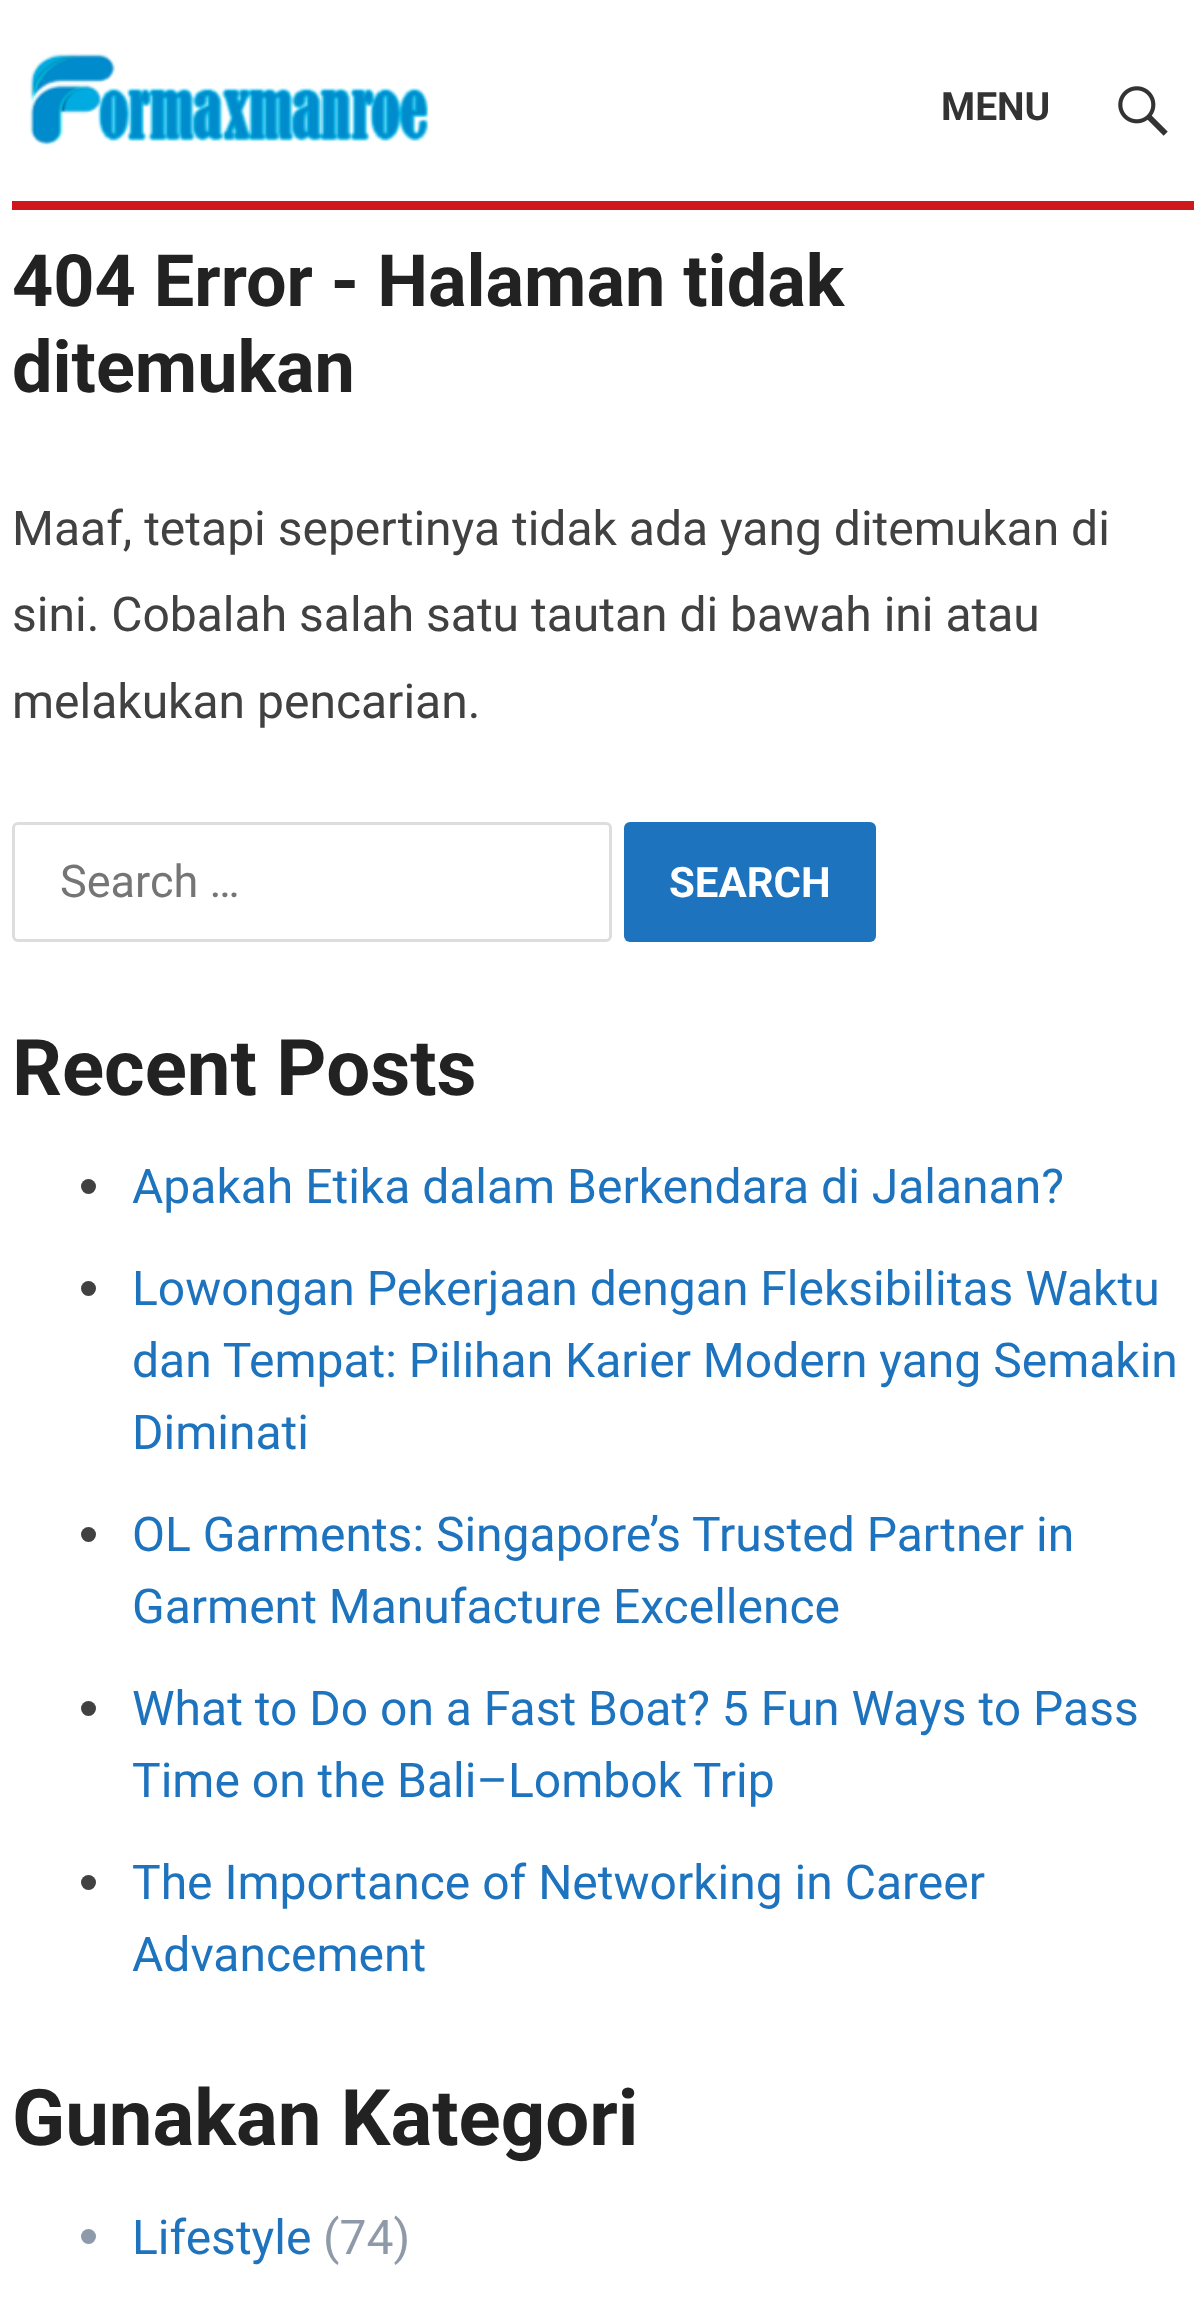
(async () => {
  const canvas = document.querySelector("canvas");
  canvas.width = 1204;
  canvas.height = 2307;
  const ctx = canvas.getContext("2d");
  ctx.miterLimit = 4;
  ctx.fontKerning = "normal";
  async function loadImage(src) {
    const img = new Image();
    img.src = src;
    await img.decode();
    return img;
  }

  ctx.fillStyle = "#ffffff";
  ctx.fillRect(0, 0, 1204, 2307);
  ctx.fillStyle = "#ce181e";
  ctx.fillRect(12, 201, 1182, 9);
  ctx.drawImage(await loadImage("img/1.png"), 29, 53, 400, 92);
  ctx.drawImage(await loadImage("img/2.png"), 1118, 86, 50, 50);
  ctx.beginPath();
  ctx.roundRect(13.5, 823.5, 597, 117, 4.5);
  ctx.strokeStyle = "#dddddd";
  ctx.lineWidth = 3;
  ctx.stroke();
  ctx.fillStyle = "#1e73be";
  ctx.beginPath();
  ctx.roundRect(624, 822, 252, 120, 6);
  ctx.fill();
  ctx.fillStyle = "#414141";
  ctx.beginPath();
  ctx.arc(88.5, 1186.5, 7.5, 0, Math.PI * 2);
  ctx.fill();
  ctx.beginPath();
  ctx.arc(88.5, 1288.5, 7.5, 0, Math.PI * 2);
  ctx.fill();
  ctx.beginPath();
  ctx.arc(88.5, 1534.5, 7.5, 0, Math.PI * 2);
  ctx.fill();
  ctx.beginPath();
  ctx.arc(88.5, 1708.5, 7.5, 0, Math.PI * 2);
  ctx.fill();
  ctx.beginPath();
  ctx.arc(88.5, 1882.5, 7.5, 0, Math.PI * 2);
  ctx.fill();
  ctx.fillStyle = "#8e99a9";
  ctx.beginPath();
  ctx.arc(88.5, 2236.5, 7.5, 0, Math.PI * 2);
  ctx.fill();
  ctx.font = "bold 39px Roboto";
  ctx.fillStyle = "#333333";
  ctx.fillText("MENU", 941, 120);
  ctx.font = "bold 72px Roboto";
  ctx.fillStyle = "#222222";
  ctx.fillText("404 Error - Halaman tidak", 12, 306);
  ctx.fillText("ditemukan", 12, 392);
  ctx.font = "48px Roboto";
  ctx.fillStyle = "#414141";
  for (const [text, x, y] of [
    ["Maaf, tetapi sepertinya tidak ada yang ditemukan di", 12, 545],
    ["sini. Cobalah salah satu tautan di bawah ini atau", 12, 631],
    ["melakukan pencarian.", 12, 718],
  ]) {
    ctx.fillText(text, x, y);
  }
  ctx.font = "45px Roboto";
  ctx.fillStyle = "#757575";
  ctx.fillText("Search …", 60, 897);
  ctx.font = "bold 42px Roboto";
  ctx.fillStyle = "#ffffff";
  ctx.fillText("SEARCH", 669, 897);
  ctx.font = "bold 78px Roboto";
  ctx.fillStyle = "#222222";
  ctx.fillText("Recent Posts", 12, 1095);
  ctx.font = "48px Roboto";
  ctx.fillStyle = "#1e73be";
  for (const [text, x, y] of [
    ["Apakah Etika dalam Berkendara di Jalanan?", 132, 1203],
    ["Lowongan Pekerjaan dengan Fleksibilitas Waktu", 132, 1305],
    ["dan Tempat: Pilihan Karier Modern yang Semakin", 132, 1377],
    ["Diminati", 132, 1449],
    ["OL Garments: Singapore’s Trusted Partner in", 132, 1551],
    ["Garment Manufacture Excellence", 132, 1623],
    ["What to Do on a Fast Boat? 5 Fun Ways to Pass", 132, 1725],
    ["Time on the Bali–Lombok Trip", 132, 1797],
    ["The Importance of Networking in Career", 132, 1899],
    ["Advancement", 132, 1971],
  ]) {
    ctx.fillText(text, x, y);
  }
  ctx.font = "bold 78px Roboto";
  ctx.fillStyle = "#222222";
  ctx.fillText("Gunakan Kategori", 12, 2145);
  ctx.font = "48px Roboto";
  ctx.fillStyle = "#1e73be";
  ctx.fillText("Lifestyle", 132, 2254);
  ctx.fillStyle = "#8e99a9";
  ctx.fillText("(74)", 323, 2254);
})();
